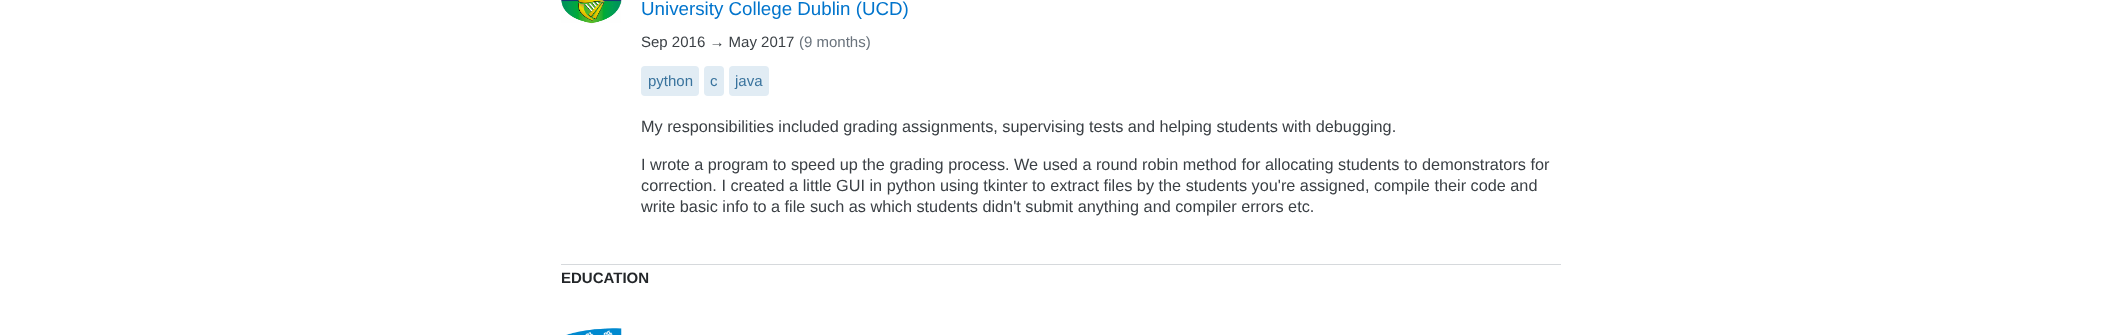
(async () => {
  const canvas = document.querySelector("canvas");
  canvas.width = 2122;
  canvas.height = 335;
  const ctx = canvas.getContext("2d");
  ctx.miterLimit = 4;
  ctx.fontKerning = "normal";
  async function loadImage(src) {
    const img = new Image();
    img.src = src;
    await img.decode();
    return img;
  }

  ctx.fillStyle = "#ffffff";
  ctx.fillRect(0, 0, 2122, 335);
  ctx.drawImage(await loadImage("img/1.png"), 561, 0, 61, 24);
  ctx.fillStyle = "#e1ecf4";
  ctx.beginPath();
  ctx.roundRect(641, 66, 58, 30, 4);
  ctx.fill();
  ctx.beginPath();
  ctx.roundRect(704, 66, 20, 30, 4);
  ctx.fill();
  ctx.beginPath();
  ctx.roundRect(729, 66, 40, 30, 4);
  ctx.fill();
  ctx.fillStyle = "#d6d9dc";
  ctx.fillRect(561, 264, 1000, 1);
  ctx.drawImage(await loadImage("img/2.png"), 566, 328, 56, 7);
  ctx.font = "18.75px Liberation Sans";
  ctx.fillStyle = "#0074cc";
  ctx.fillText("University College Dublin (UCD)", 641, 15);
  ctx.font = "15px Liberation Sans";
  ctx.fillStyle = "#3b4045";
  ctx.fillText("Sep 2016 → May 2017", 641, 47);
  ctx.fillStyle = "#6a737c";
  ctx.fillText("(9 months)", 799, 47);
  ctx.fillStyle = "#39739d";
  for (const [text, x, y] of [
    ["python", 648, 86],
    ["c", 710, 86],
    ["java", 735, 86],
  ]) {
    ctx.fillText(text, x, y);
  }
  ctx.font = "16.25px Liberation Sans";
  ctx.fillStyle = "#3b4045";
  for (const [text, x, y] of [
    ["My responsibilities included grading assignments, supervising tests and helping students with debugging.", 641, 132],
    ["I wrote a program to speed up the grading process. We used a round robin method for allocating students to demonstrators for", 641, 170],
    ["correction. I created a little GUI in python using tkinter to extract files by the students you're assigned, compile their code and", 641, 191],
    ["write basic info to a file such as which students didn't submit anything and compiler errors etc.", 641, 212],
  ]) {
    ctx.fillText(text, x, y);
  }
  ctx.font = "bold 15px Liberation Sans";
  ctx.fillStyle = "#232629";
  ctx.fillText("EDUCATION", 561, 283);
})();
